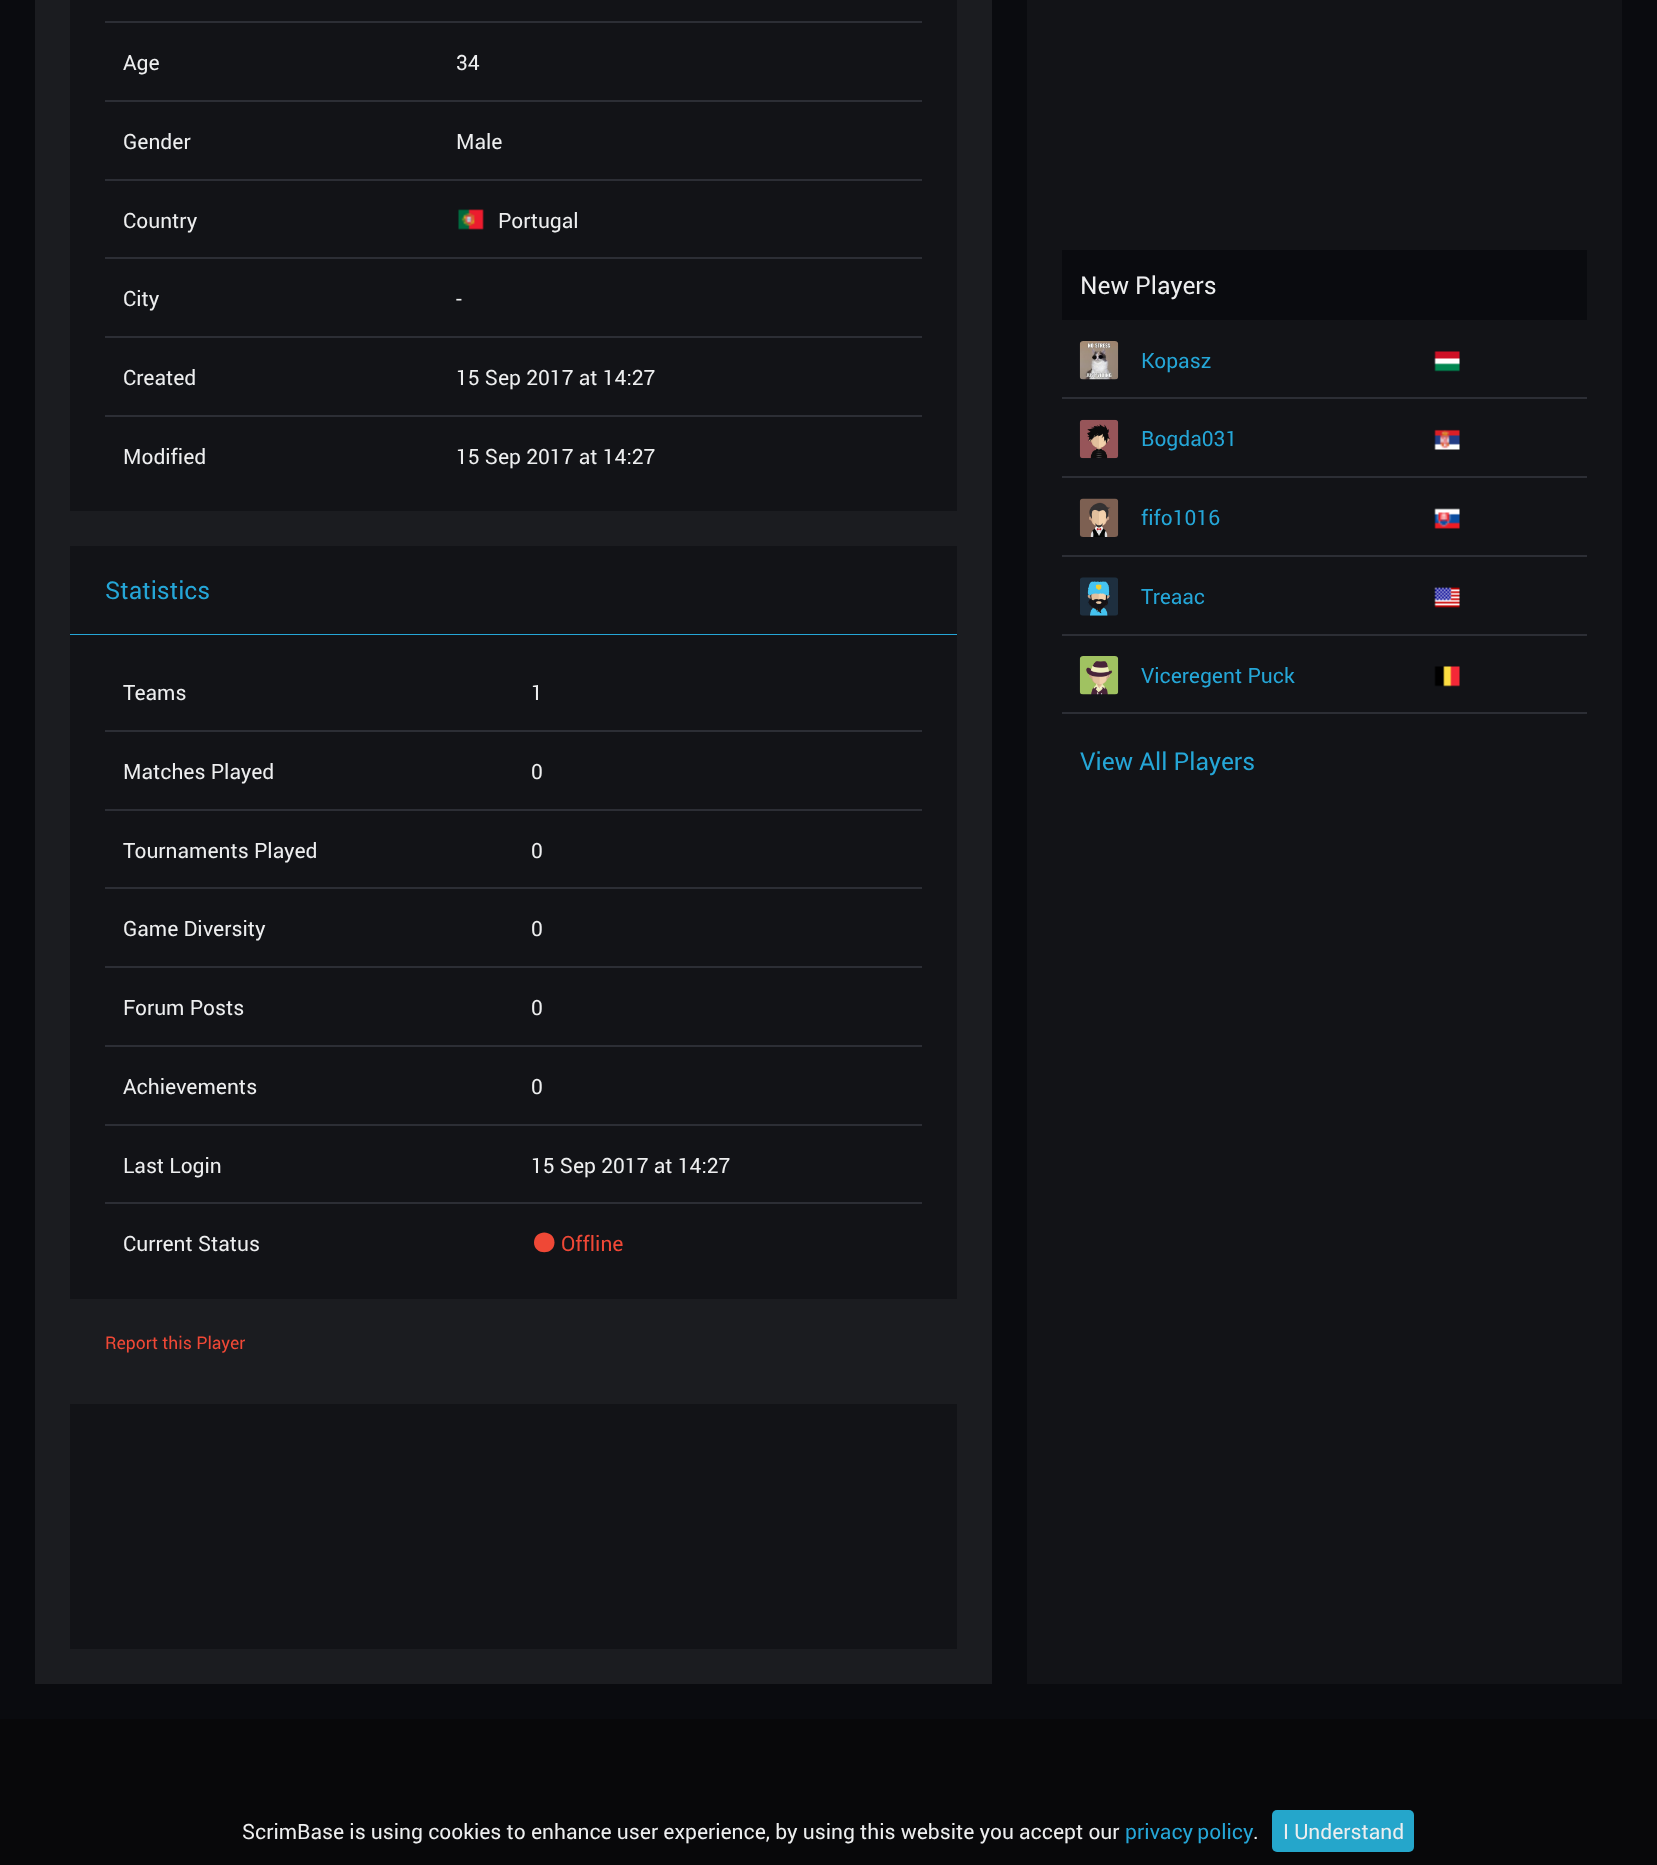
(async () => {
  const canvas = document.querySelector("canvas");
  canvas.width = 1657;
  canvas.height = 1865;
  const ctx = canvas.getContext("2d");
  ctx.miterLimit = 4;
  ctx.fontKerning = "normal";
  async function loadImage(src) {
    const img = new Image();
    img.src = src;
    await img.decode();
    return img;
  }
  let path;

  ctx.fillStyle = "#0a0b0f";
  ctx.fillRect(0, 0, 1657, 1865);
  for (const [x, y, w, h, color] of [
    [35, 0, 957, 1684, "#1b1c20"],
    [70, 0, 887, 511, "#121317"],
    [105, 21, 817, 2, "#2c2e35"],
    [105, 100, 817, 2, "#2c2e35"],
    [105, 179, 817, 2, "#2c2e35"],
    [105, 257, 817, 2, "#2c2e35"],
  ]) {
    ctx.fillStyle = color;
    ctx.fillRect(x, y, w, h);
  }
  ctx.drawImage(await loadImage("img/1.png"), 458, 209, 26, 21);
  for (const [x, y, w, h, color] of [
    [105, 336, 817, 2, "#2c2e35"],
    [105, 415, 817, 2, "#2c2e35"],
    [70, 546, 887, 88, "#121317"],
    [70, 634, 887, 1, "#25a6d7"],
    [70, 635, 887, 664, "#121317"],
    [105, 730, 817, 2, "#2c2e35"],
    [105, 809, 817, 2, "#2c2e35"],
    [105, 887, 817, 2, "#2c2e35"],
    [105, 966, 817, 2, "#2c2e35"],
    [105, 1045, 817, 2, "#2c2e35"],
    [105, 1124, 817, 2, "#2c2e35"],
    [105, 1202, 817, 2, "#2c2e35"],
  ]) {
    ctx.fillStyle = color;
    ctx.fillRect(x, y, w, h);
  }
  ctx.fillStyle = "#ef4836";
  path = new Path2D("M554.5 1242.5C554.5 1255.5 534 1255.5 534 1242.5C534 1229 554.5 1229 554.5 1242.5Z");
  ctx.fill(path);
  for (const [x, y, w, h, color] of [
    [70, 1404, 887, 245, "#121317"],
    [1027, 0, 595, 1684, "#121317"],
    [1062, 250, 525, 70, "#0a0b0f"],
    [1062, 397, 525, 2, "#2c2e35"],
  ]) {
    ctx.fillStyle = color;
    ctx.fillRect(x, y, w, h);
  }
  ctx.drawImage(await loadImage("img/2.png"), 1079, 341, 40, 39);
  ctx.drawImage(await loadImage("img/3.png"), 1434, 351, 26, 21);
  ctx.fillRect(1062, 476, 525, 2);
  ctx.drawImage(await loadImage("img/4.png"), 1079, 419, 40, 40);
  ctx.drawImage(await loadImage("img/5.png"), 1434, 429, 26, 21);
  ctx.fillRect(1062, 555, 525, 2);
  ctx.drawImage(await loadImage("img/6.png"), 1079, 498, 40, 39);
  ctx.drawImage(await loadImage("img/7.png"), 1434, 508, 26, 21);
  ctx.fillRect(1062, 634, 525, 2);
  ctx.drawImage(await loadImage("img/8.png"), 1080, 577, 38, 39);
  ctx.drawImage(await loadImage("img/9.png"), 1434, 587, 26, 21);
  ctx.fillRect(1062, 712, 525, 2);
  ctx.drawImage(await loadImage("img/10.png"), 1079, 656, 40, 39);
  ctx.drawImage(await loadImage("img/11.png"), 1434, 666, 26, 21);
  ctx.fillStyle = "#08080a";
  ctx.fillRect(0, 1719, 1657, 146);
  ctx.fillStyle = "#25a6cb";
  ctx.beginPath();
  ctx.roundRect(1272, 1810, 142, 42, 5);
  ctx.fill();
  ctx.font = "21px roboto";
  ctx.fillStyle = "#edeeef";
  for (const [text, x, y] of [
    ["Age", 123, 70],
    ["34", 456, 70],
    ["Gender", 123, 149],
    ["Male", 456, 149],
    ["Country", 123, 228],
    ["Portugal", 498, 228],
    ["City", 123, 306],
    ["-", 456, 306],
    ["Created", 123, 385],
    ["15 Sep 2017 at 14:27", 456, 385],
    ["Modified", 123, 464],
    ["15 Sep 2017 at 14:27", 456, 464],
  ]) {
    ctx.fillText(text, x, y);
  }
  ctx.font = "24.5px roboto";
  ctx.fillStyle = "#25a6d7";
  ctx.fillText("Statistics", 105, 599);
  ctx.font = "21px roboto";
  ctx.fillStyle = "#edeeef";
  for (const [text, x, y] of [
    ["Teams", 123, 700],
    ["1", 531, 700],
    ["Matches Played", 123, 779],
    ["0", 531, 779],
    ["Tournaments Played", 123, 858],
    ["0", 531, 858],
    ["Game Diversity", 123, 936],
    ["0", 531, 936],
    ["Forum Posts", 123, 1015],
    ["0", 531, 1015],
    ["Achievements", 123, 1094],
    ["0", 531, 1094],
    ["Last Login", 123, 1173],
    ["15 Sep 2017 at 14:27", 531, 1173],
    ["Current Status", 123, 1251],
  ]) {
    ctx.fillText(text, x, y);
  }
  ctx.fillStyle = "#ef4836";
  ctx.fillText("Offline", 561, 1251);
  ctx.font = "17.5px roboto";
  ctx.fillText("Report this Player", 105, 1349);
  ctx.font = "24.5px roboto";
  ctx.fillStyle = "#edeeef";
  ctx.fillText("New Players", 1080, 294);
  ctx.font = "21px roboto";
  ctx.fillStyle = "#25a6d7";
  for (const [text, x, y] of [
    ["Kopasz", 1141, 368],
    ["Bogda031", 1141, 446],
    ["fifo1016", 1141, 525],
    ["Treaac", 1141, 604],
    ["Viceregent Puck", 1141, 683],
  ]) {
    ctx.fillText(text, x, y);
  }
  ctx.font = "24.5px roboto";
  ctx.fillText("View All Players", 1080, 770);
  ctx.font = "21px roboto";
  ctx.fillStyle = "#edeeef";
  ctx.fillText("ScrimBase is using cookies to enhance user experience, by using this website you accept our", 242, 1839);
  ctx.wordSpacing = "-1px";
  ctx.fillStyle = "#25a6d7";
  ctx.fillText("privacy policy", 1125, 1839);
  ctx.wordSpacing = "0px";
  ctx.fillStyle = "#edeeef";
  ctx.fillText(".", 1253, 1839);
  ctx.fillText("I Understand", 1283, 1839);
})();
